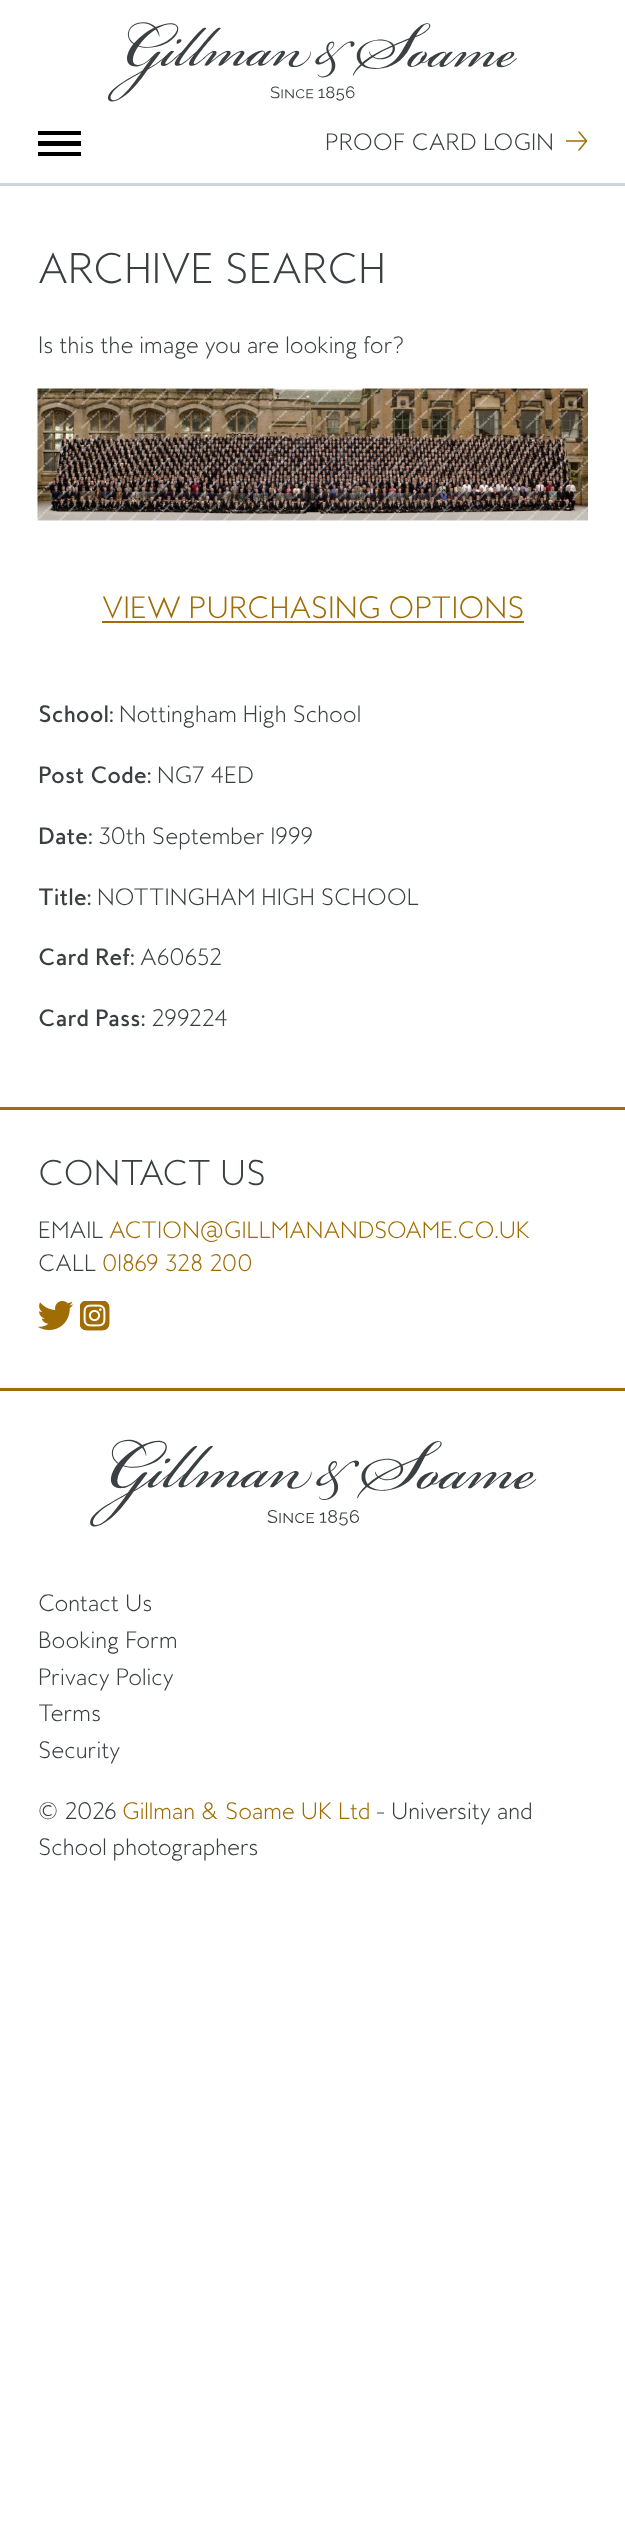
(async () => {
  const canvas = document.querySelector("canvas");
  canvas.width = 625;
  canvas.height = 2532;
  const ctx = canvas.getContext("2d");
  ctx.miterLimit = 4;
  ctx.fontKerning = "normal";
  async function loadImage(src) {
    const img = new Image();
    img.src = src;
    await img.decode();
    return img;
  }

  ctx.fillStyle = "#ffffff";
  ctx.fillRect(0, 0, 625, 2532);
  ctx.fillStyle = "#cfd6de";
  ctx.fillRect(0, 183, 625, 3);
  ctx.drawImage(await loadImage("img/1.png"), 107, 22, 410, 80);
  for (const [x, y, w, h, color] of [
    [38, 131, 43, 4, "#000000"],
    [38, 141, 43, 5, "#000000"],
    [38, 152, 43, 4, "#000000"],
  ]) {
    ctx.fillStyle = color;
    ctx.fillRect(x, y, w, h);
  }
  ctx.drawImage(await loadImage("img/2.png"), 566, 131, 22, 20);
  ctx.drawImage(await loadImage("img/3.png"), 37, 388, 551, 133);
  ctx.fillStyle = "#9f6d04";
  ctx.fillRect(102, 621, 422, 2);
  ctx.fillRect(0, 1107, 625, 3);
  ctx.drawImage(await loadImage("img/4.png"), 38, 1301, 36, 29);
  ctx.drawImage(await loadImage("img/5.png"), 80, 1301, 30, 30);
  ctx.fillRect(0, 1388, 625, 3);
  ctx.drawImage(await loadImage("img/6.png"), 90, 1439, 447, 88);
  ctx.font = "300 21.6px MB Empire";
  ctx.fillStyle = "#3a3f42";
  ctx.fillText("PROOF CARD LOGIN", 325, 150);
  ctx.font = "300 38.9px MB Empire";
  ctx.fillText("ARCHIVE SEARCH", 38, 283);
  ctx.font = "300 21.6px MB Empire";
  ctx.fillText("Is this the image you are looking for?", 38, 353);
  ctx.font = "300 28.1px MB Empire";
  ctx.fillStyle = "#9f6d04";
  ctx.fillText("VIEW PURCHASING OPTIONS", 102, 618);
  ctx.font = "500 21.6px MB Empire";
  ctx.fillStyle = "#3a3f42";
  ctx.fillText("School:", 38, 722);
  ctx.font = "300 21.6px MB Empire";
  ctx.fillText("Nottingham High School", 119, 722);
  ctx.font = "500 21.6px MB Empire";
  ctx.fillText("Post Code:", 38, 783);
  ctx.font = "300 21.6px MB Empire";
  ctx.fillText("NG7 4ED", 157, 783);
  ctx.font = "500 21.6px MB Empire";
  ctx.fillText("Date:", 38, 844);
  ctx.font = "300 21.6px MB Empire";
  ctx.fillText("30th September 1999", 98, 844);
  ctx.font = "500 21.6px MB Empire";
  ctx.fillText("Title:", 38, 905);
  ctx.font = "300 21.6px MB Empire";
  ctx.fillText("NOTTINGHAM HIGH SCHOOL", 97, 905);
  ctx.font = "500 21.6px MB Empire";
  ctx.fillText("Card Ref:", 38, 965);
  ctx.font = "300 21.6px MB Empire";
  ctx.fillText("A60652", 140, 965);
  ctx.font = "500 21.6px MB Empire";
  ctx.fillText("Card Pass:", 38, 1026);
  ctx.font = "300 21.6px MB Empire";
  ctx.fillText("299224", 151, 1026);
  ctx.font = "300 32.5px MB Empire";
  ctx.fillText("CONTACT US", 38, 1185);
  ctx.font = "300 21.6px MB Empire";
  ctx.fillText("EMAIL", 38, 1238);
  ctx.fillStyle = "#9f6d04";
  ctx.fillText("ACTION@GILLMANANDSOAME.CO.UK", 109, 1238);
  ctx.fillStyle = "#3a3f42";
  ctx.fillText("CALL", 38, 1271);
  ctx.fillStyle = "#9f6d04";
  ctx.fillText("01869 328 200", 102, 1271);
  ctx.fillStyle = "#3a3f42";
  for (const [text, x, y] of [
    ["Contact Us", 38, 1611],
    ["Booking Form", 38, 1648],
    ["Privacy Policy", 38, 1685],
    ["Terms", 38, 1721],
    ["Security", 38, 1758],
    ["© 2026", 38, 1819],
  ]) {
    ctx.fillText(text, x, y);
  }
  ctx.fillStyle = "#9f6d04";
  ctx.fillText("Gillman & Soame UK Ltd", 122, 1819);
  ctx.fillStyle = "#3a3f42";
  ctx.fillText("- University and", 376, 1819);
  ctx.fillText("School photographers", 38, 1855);
})();
